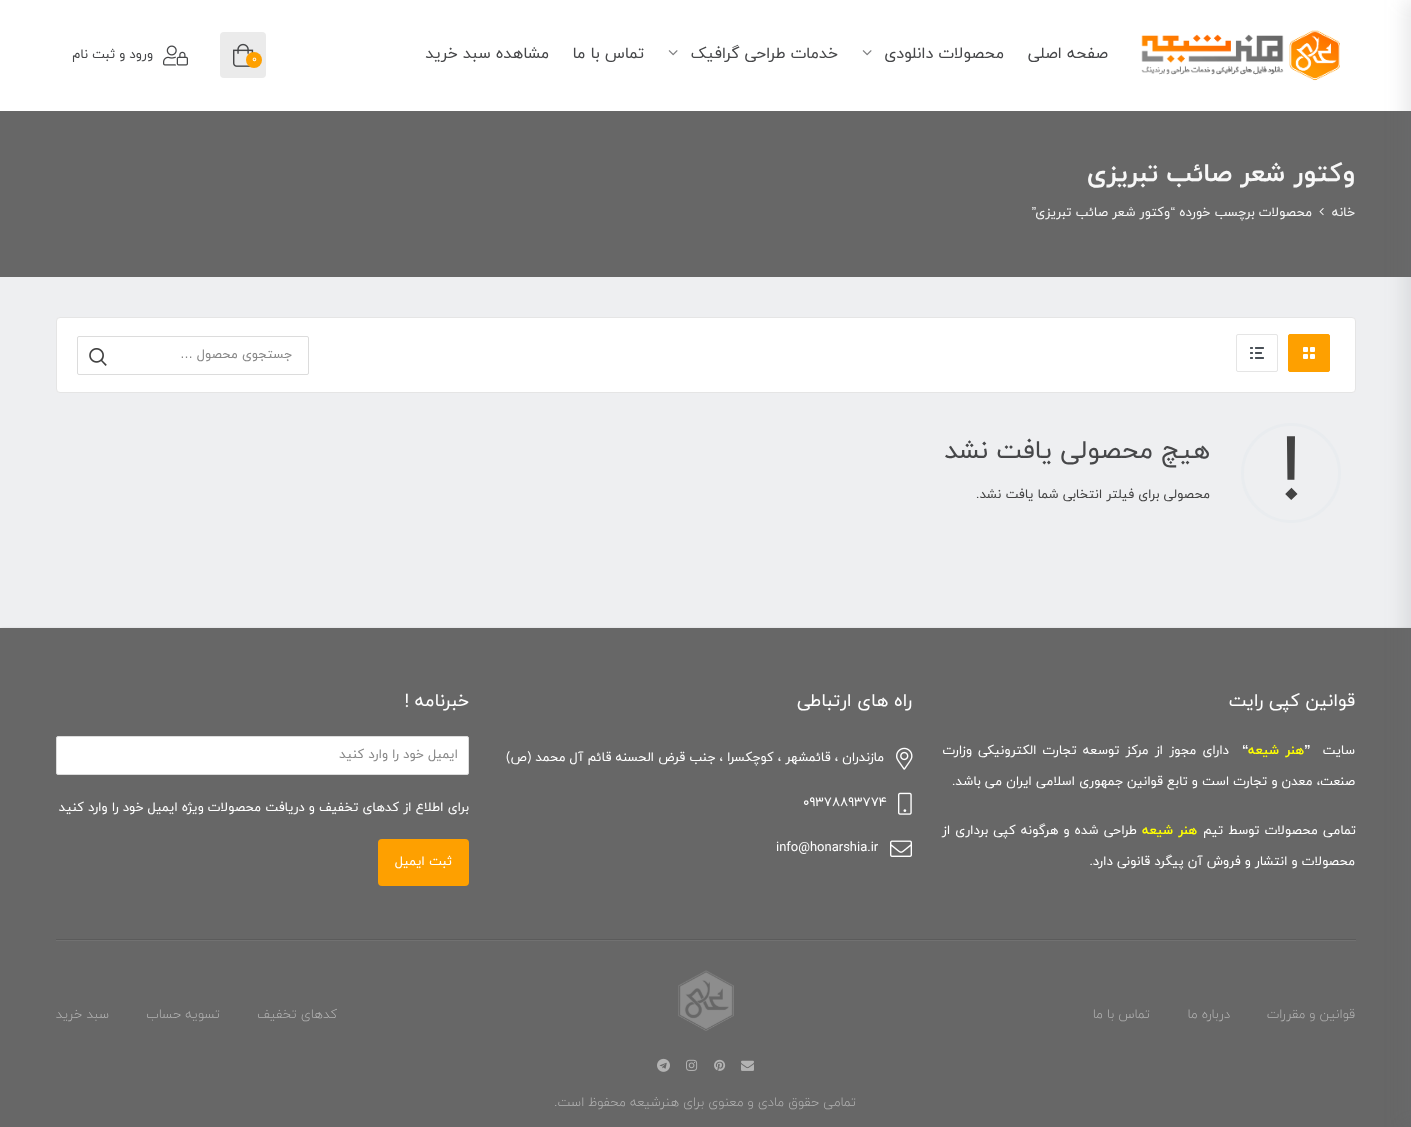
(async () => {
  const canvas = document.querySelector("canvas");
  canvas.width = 1411;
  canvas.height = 1127;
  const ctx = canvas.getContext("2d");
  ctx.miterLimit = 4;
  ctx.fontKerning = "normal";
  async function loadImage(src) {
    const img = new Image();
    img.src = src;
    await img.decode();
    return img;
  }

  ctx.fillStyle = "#ffffff";
  ctx.fillRect(0, 0, 1411, 1127);
  ctx.fillStyle = "#676767";
  ctx.fillRect(0, 111, 1411, 166);
  ctx.fillStyle = "#eeeff1";
  ctx.fillRect(0, 277, 1411, 351);
  ctx.fillStyle = "rgba(0, 0, 0, 0.2)";
  ctx.filter = "blur(1.5px)";
  ctx.beginPath();
  ctx.rect(1, 629, 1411, 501);
  ctx.fill();
  ctx.filter = "none";
  ctx.fillStyle = "#676767";
  ctx.fillRect(0, 628, 1411, 499);
  ctx.fillStyle = "rgba(115, 118, 127, 0.17)";
  ctx.filter = "blur(10px)";
  ctx.beginPath();
  ctx.rect(1405, 0, 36, 1127);
  ctx.fill();
  ctx.filter = "none";
  ctx.drawImage(await loadImage("img/1.png"), 1141, 30, 199, 51);
  ctx.drawImage(await loadImage("img/2.png"), 862, 50, 10, 6);
  ctx.drawImage(await loadImage("img/2.png"), 668, 50, 10, 6);
  ctx.fillStyle = "#ebebeb";
  ctx.beginPath();
  ctx.roundRect(220, 32, 46, 46, 4);
  ctx.fill();
  ctx.drawImage(await loadImage("img/3.png"), 233, 43, 21, 24);
  ctx.fillStyle = "#fea000";
  ctx.beginPath();
  ctx.arc(254, 60, 8, 0, Math.PI * 2);
  ctx.fill();
  ctx.drawImage(await loadImage("img/4.png"), 163, 45, 25, 21);
  ctx.drawImage(await loadImage("img/5.png"), 1319, 208, 5, 8);
  ctx.fillStyle = "#ffffff";
  ctx.beginPath();
  ctx.roundRect(56.5, 317.5, 1299, 75, 3.5);
  ctx.fill();
  ctx.strokeStyle = "#e5e5e5";
  ctx.stroke();
  ctx.fillStyle = "#fea000";
  ctx.beginPath();
  ctx.roundRect(1288.5, 334.5, 41, 37, 1.5);
  ctx.fill();
  ctx.strokeStyle = "#fea000";
  ctx.stroke();
  ctx.drawImage(await loadImage("img/6.png"), 1303, 347, 12, 12);
  ctx.beginPath();
  ctx.roundRect(1236.5, 334.5, 41, 37, 1.5);
  ctx.strokeStyle = "#e5e5e5";
  ctx.stroke();
  ctx.drawImage(await loadImage("img/7.png"), 1250, 347, 14, 12);
  ctx.beginPath();
  ctx.roundRect(77.5, 336.5, 231, 38, 1.5);
  ctx.strokeStyle = "#dcdcdc";
  ctx.stroke();
  ctx.drawImage(await loadImage("img/8.png"), 89, 348, 18, 18);
  ctx.beginPath();
  ctx.arc(1291, 473, 48.5, 0, Math.PI * 2);
  ctx.strokeStyle = "#e9ecef";
  ctx.lineWidth = 3;
  ctx.stroke();
  ctx.drawImage(await loadImage("img/9.png"), 896, 747, 17, 23);
  ctx.drawImage(await loadImage("img/10.png"), 898, 792, 14, 23);
  ctx.drawImage(await loadImage("img/11.png"), 890, 840, 22, 17);
  ctx.fillStyle = "#ffffff";
  ctx.beginPath();
  ctx.roundRect(56.5, 736.5, 412, 38, 1.5);
  ctx.fill();
  ctx.strokeStyle = "#dcdcdc";
  ctx.lineWidth = 1;
  ctx.stroke();
  ctx.fillStyle = "#fea000";
  ctx.beginPath();
  ctx.roundRect(378, 839, 91, 47, 4);
  ctx.fill();
  ctx.fillStyle = "#5b5b5b";
  ctx.fillRect(56, 939, 1300, 1);
  ctx.fillStyle = "#717171";
  ctx.fillRect(56, 940, 1300, 1);
  ctx.drawImage(await loadImage("img/12.png"), 678, 970, 56, 61);
  ctx.drawImage(await loadImage("img/13.png"), 741, 1060, 13, 11);
  ctx.drawImage(await loadImage("img/14.png"), 714, 1059, 12, 12);
  ctx.drawImage(await loadImage("img/15.png"), 686, 1059, 12, 12);
  ctx.drawImage(await loadImage("img/16.png"), 657, 1058, 13, 14);
  ctx.direction = "rtl";
  ctx.font = "16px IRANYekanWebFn";
  ctx.fillStyle = "#464749";
  for (const [text, x, y] of [
    ["صفحه اصلی", 1108, 58],
    ["محصولات دانلودی", 1004, 58],
    ["خدمات طراحی گرافیک", 838, 58],
    ["تماس با ما", 644, 58],
    ["مشاهده سبد خرید", 549, 58],
  ]) {
    ctx.fillText(text, x, y);
  }
  ctx.direction = "ltr";
  ctx.font = "10px IRANYekanWebFn";
  ctx.fillStyle = "#ffffff";
  ctx.fillText("0", 252, 62);
  ctx.direction = "rtl";
  ctx.font = "13px IRANYekanWebFn";
  ctx.fillStyle = "#464749";
  ctx.fillText("ورود و ثبت نام", 153, 58);
  ctx.font = "bold 26px IRANYekanWebFn";
  ctx.fillStyle = "#f7f7f7";
  ctx.fillText("وکتور شعر صائب تبریزی", 1355, 181);
  ctx.font = "13px IRANYekanWebFn";
  ctx.fillText("خانه", 1355, 216);
  ctx.fillText("محصولات برچسب خورده", 1312, 216);
  ctx.font = "13px Liberation Sans";
  ctx.fillText("“", 1175, 216);
  ctx.font = "13px IRANYekanWebFn";
  ctx.fillText("وکتور شعر صائب تبریزی", 1170, 216);
  ctx.font = "13px Liberation Sans";
  ctx.fillText("”", 1036, 216);
  ctx.font = "13px IRANYekanWebFn";
  ctx.fillStyle = "#888888";
  ctx.fillText("جستجوی محصول", 292, 358);
  ctx.font = "13px Liberation Sans";
  ctx.fillText("…", 193, 358);
  ctx.direction = "ltr";
  ctx.font = "85px IRANYekanWebFn";
  ctx.fillStyle = "#434343";
  ctx.fillText("!", 1280, 494);
  ctx.direction = "rtl";
  ctx.font = "26px IRANYekanWebFn";
  ctx.fillStyle = "#464749";
  ctx.fillText("هیچ محصولی یافت نشد", 1210, 458);
  ctx.font = "13px IRANYekanWebFn";
  ctx.fillStyle = "#434343";
  ctx.fillText("محصولی برای فیلتر انتخابی شما یافت نشد.", 1210, 498);
  ctx.font = "18px IRANYekanWebFn";
  ctx.fillStyle = "#ffffff";
  ctx.fillText("قوانین کپی رایت", 1355, 706);
  ctx.font = "13px IRANYekanWebFn";
  ctx.fillText("سایت", 1355, 754);
  ctx.direction = "ltr";
  ctx.font = "bold 13px Liberation Sans";
  ctx.fillText("”", 1304, 754);
  ctx.wordSpacing = "2px";
  ctx.direction = "rtl";
  ctx.font = "bold 13px IRANYekanWebFn";
  ctx.fillStyle = "#ffff00";
  ctx.fillText("هنر شیعه", 1304, 754);
  ctx.wordSpacing = "0px";
  ctx.direction = "ltr";
  ctx.font = "bold 13px Liberation Sans";
  ctx.fillStyle = "#ffffff";
  ctx.fillText("“", 1242, 754);
  ctx.wordSpacing = "2px";
  ctx.direction = "rtl";
  ctx.font = "13px IRANYekanWebFn";
  ctx.fillText("دارای مجوز از مرکز توسعه تجارت الکترونیکی وزارت", 1229, 754);
  ctx.wordSpacing = "0px";
  ctx.fillText("صنعت، معدن و تجارت است و تابع قوانین جمهوری اسلامی ایران می باشد.", 1355, 785);
  ctx.wordSpacing = "1px";
  ctx.fillText("تمامی محصولات توسط تیم", 1356, 834);
  ctx.font = "bold 13px IRANYekanWebFn";
  ctx.fillStyle = "#ffff00";
  ctx.fillText("هنر شیعه", 1197, 834);
  ctx.font = "13px IRANYekanWebFn";
  ctx.fillStyle = "#ffffff";
  ctx.fillText("طراحی شده و هرگونه کپی برداری از", 1137, 834);
  ctx.wordSpacing = "0px";
  ctx.fillText("محصولات و انتشار و فروش آن پیگرد قانونی دارد.", 1355, 865);
  ctx.font = "18px IRANYekanWebFn";
  ctx.fillText("راه های ارتباطی", 912, 706);
  ctx.font = "13px IRANYekanWebFn";
  ctx.fillText("مازندران ، قائمشهر ، کوچکسرا ، جنب قرض الحسنه قائم آل محمد (ص)", 884, 761);
  ctx.direction = "ltr";
  ctx.fillText("09378893774", 803, 806);
  ctx.fillText("info@honarshia.ir", 776, 851);
  ctx.direction = "rtl";
  ctx.font = "18px IRANYekanWebFn";
  ctx.fillText("خبرنامه !", 469, 706);
  ctx.font = "13px IRANYekanWebFn";
  ctx.fillStyle = "#888888";
  ctx.fillText("ایمیل خود را وارد کنید", 458, 758);
  ctx.fillStyle = "#ffffff";
  ctx.fillText("برای اطلاع از کدهای تخفیف و دریافت محصولات ویژه ایمیل خود را وارد کنید", 469, 811);
  ctx.fillText("ثبت ایمیل", 452, 865);
  ctx.font = "300 13px IRANYekanWebFn";
  ctx.fillStyle = "#b3b3b3";
  for (const [text, x, y] of [
    ["قوانین و مقررات", 1355, 1018],
    ["درباره ما", 1230, 1018],
    ["تماس با ما", 1150, 1018],
    ["کدهای تخفیف", 337, 1018],
    ["تسویه حساب", 220, 1018],
    ["سبد خرید", 109, 1018],
    ["تمامی حقوق مادی و معنوی برای هنرشیعه محفوظ است.", 856, 1106],
  ]) {
    ctx.fillText(text, x, y);
  }
})();
